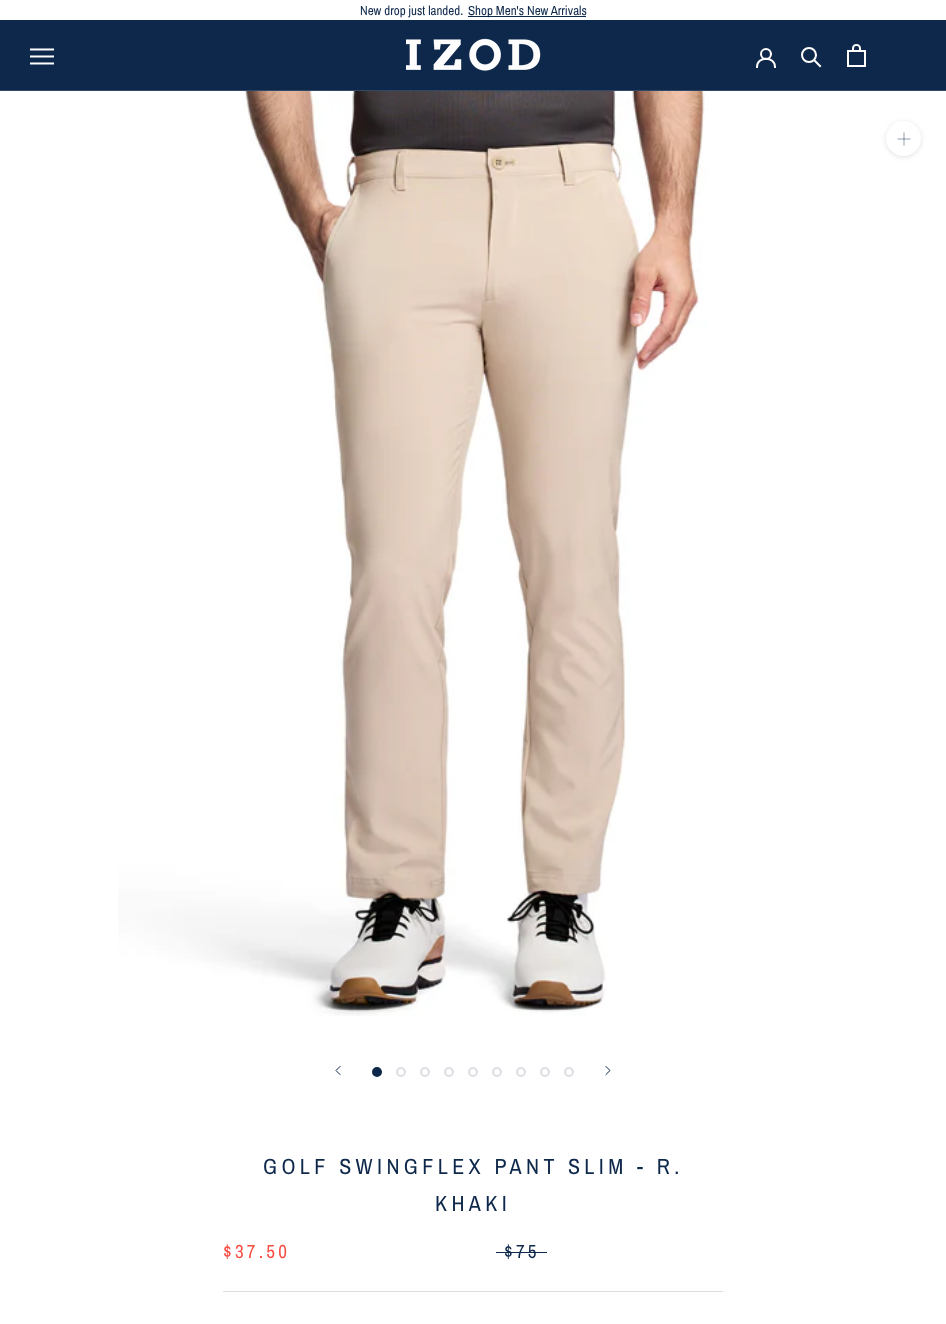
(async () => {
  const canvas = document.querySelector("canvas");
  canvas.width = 946;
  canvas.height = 1324;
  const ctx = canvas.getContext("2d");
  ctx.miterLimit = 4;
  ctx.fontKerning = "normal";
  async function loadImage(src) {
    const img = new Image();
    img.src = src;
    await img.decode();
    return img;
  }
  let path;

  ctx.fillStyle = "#ffffff";
  ctx.fillRect(0, 0, 946, 1324);
  for (const [x, y, w, h, color] of [
    [468, 16, 118, 1, "#0e284b"],
    [0, 20, 946, 70, "#0e284b"],
    [0, 90, 946, 1, "#324866"],
  ]) {
    ctx.fillStyle = color;
    ctx.fillRect(x, y, w, h);
  }
  ctx.drawImage(await loadImage("img/1.png"), 30, 48, 24, 17);
  ctx.drawImage(await loadImage("img/2.png"), 406, 38, 135, 33);
  path = new Path2D("M757 67C757 56 775 56 775 67");
  ctx.strokeStyle = "#ffffff";
  ctx.lineWidth = 2;
  ctx.lineCap = "square";
  ctx.stroke(path);
  ctx.beginPath();
  ctx.arc(766, 54, 5, 0, Math.PI * 2);
  ctx.stroke();
  path = new Path2D("M820 66L814.5 60.5");
  ctx.stroke(path);
  ctx.beginPath();
  ctx.arc(809, 55, 7, 0, Math.PI * 2);
  ctx.stroke();
  ctx.drawImage(await loadImage("img/3.png"), 847, 44, 19, 23);
  ctx.drawImage(await loadImage("img/4.png"), 118, 91, 590, 925);
  ctx.fillStyle = "rgba(54, 54, 54, 0.15)";
  ctx.filter = "blur(2.5px)";
  ctx.beginPath();
  ctx.roundRect(886, 122, 35, 35, 17.5);
  ctx.fill();
  ctx.filter = "none";
  ctx.fillStyle = "#ffffff";
  ctx.beginPath();
  ctx.arc(903.5, 138.5, 17.5, 0, Math.PI * 2);
  ctx.fill();
  path = new Path2D("M904 133V145");
  ctx.strokeStyle = "#8794a5";
  ctx.lineWidth = 0.9;
  ctx.stroke(path);
  path = new Path2D("M898 139H910");
  ctx.strokeStyle = "rgba(14, 40, 75, 0.5)";
  ctx.stroke(path);
  path = new Path2D("M340 1074.5L336 1070.5L340 1066.5");
  ctx.strokeStyle = "#0e284b";
  ctx.lineWidth = 1;
  ctx.stroke(path);
  ctx.fillStyle = "#0e284b";
  ctx.beginPath();
  ctx.arc(377, 1072, 4, 0, Math.PI * 2);
  ctx.fill();
  ctx.lineWidth = 2;
  ctx.stroke();
  ctx.beginPath();
  ctx.arc(401, 1072, 4, 0, Math.PI * 2);
  ctx.strokeStyle = "#dbdfe4";
  ctx.stroke();
  ctx.beginPath();
  ctx.arc(425, 1072, 4, 0, Math.PI * 2);
  ctx.stroke();
  ctx.beginPath();
  ctx.arc(449, 1072, 4, 0, Math.PI * 2);
  ctx.stroke();
  ctx.beginPath();
  ctx.arc(473, 1072, 4, 0, Math.PI * 2);
  ctx.stroke();
  ctx.beginPath();
  ctx.arc(497, 1072, 4, 0, Math.PI * 2);
  ctx.stroke();
  ctx.beginPath();
  ctx.arc(521, 1072, 4, 0, Math.PI * 2);
  ctx.stroke();
  ctx.beginPath();
  ctx.arc(545, 1072, 4, 0, Math.PI * 2);
  ctx.stroke();
  ctx.beginPath();
  ctx.arc(569, 1072, 4, 0, Math.PI * 2);
  ctx.stroke();
  path = new Path2D("M606 1074.5L610 1070.5L606 1066.5");
  ctx.strokeStyle = "#0e284b";
  ctx.lineWidth = 1;
  ctx.stroke(path);
  ctx.fillStyle = "#dbdfe4";
  ctx.fillRect(223, 1291, 500, 1);
  ctx.fillStyle = "#0e284b";
  ctx.fillRect(496, 1252, 51, 1);
  ctx.font = "13px Archivo Narrow";
  ctx.fillText("New drop just landed.", 360, 15);
  ctx.fillText("Shop Men's New Arrivals", 468, 15);
  ctx.letterSpacing = "4.4px";
  ctx.font = "22px Archivo Narrow";
  ctx.fillText("GOLF SWINGFLEX PANT SLIM - R.", 263, 1174);
  ctx.fillText("KHAKI", 435, 1211);
  ctx.letterSpacing = "3.25px";
  ctx.font = "19px Archivo Narrow";
  ctx.fillStyle = "#f94c43";
  ctx.fillText("$37.50", 223, 1258);
  ctx.fillStyle = "#0e284b";
  ctx.fillText("$75", 504, 1258);
})();
